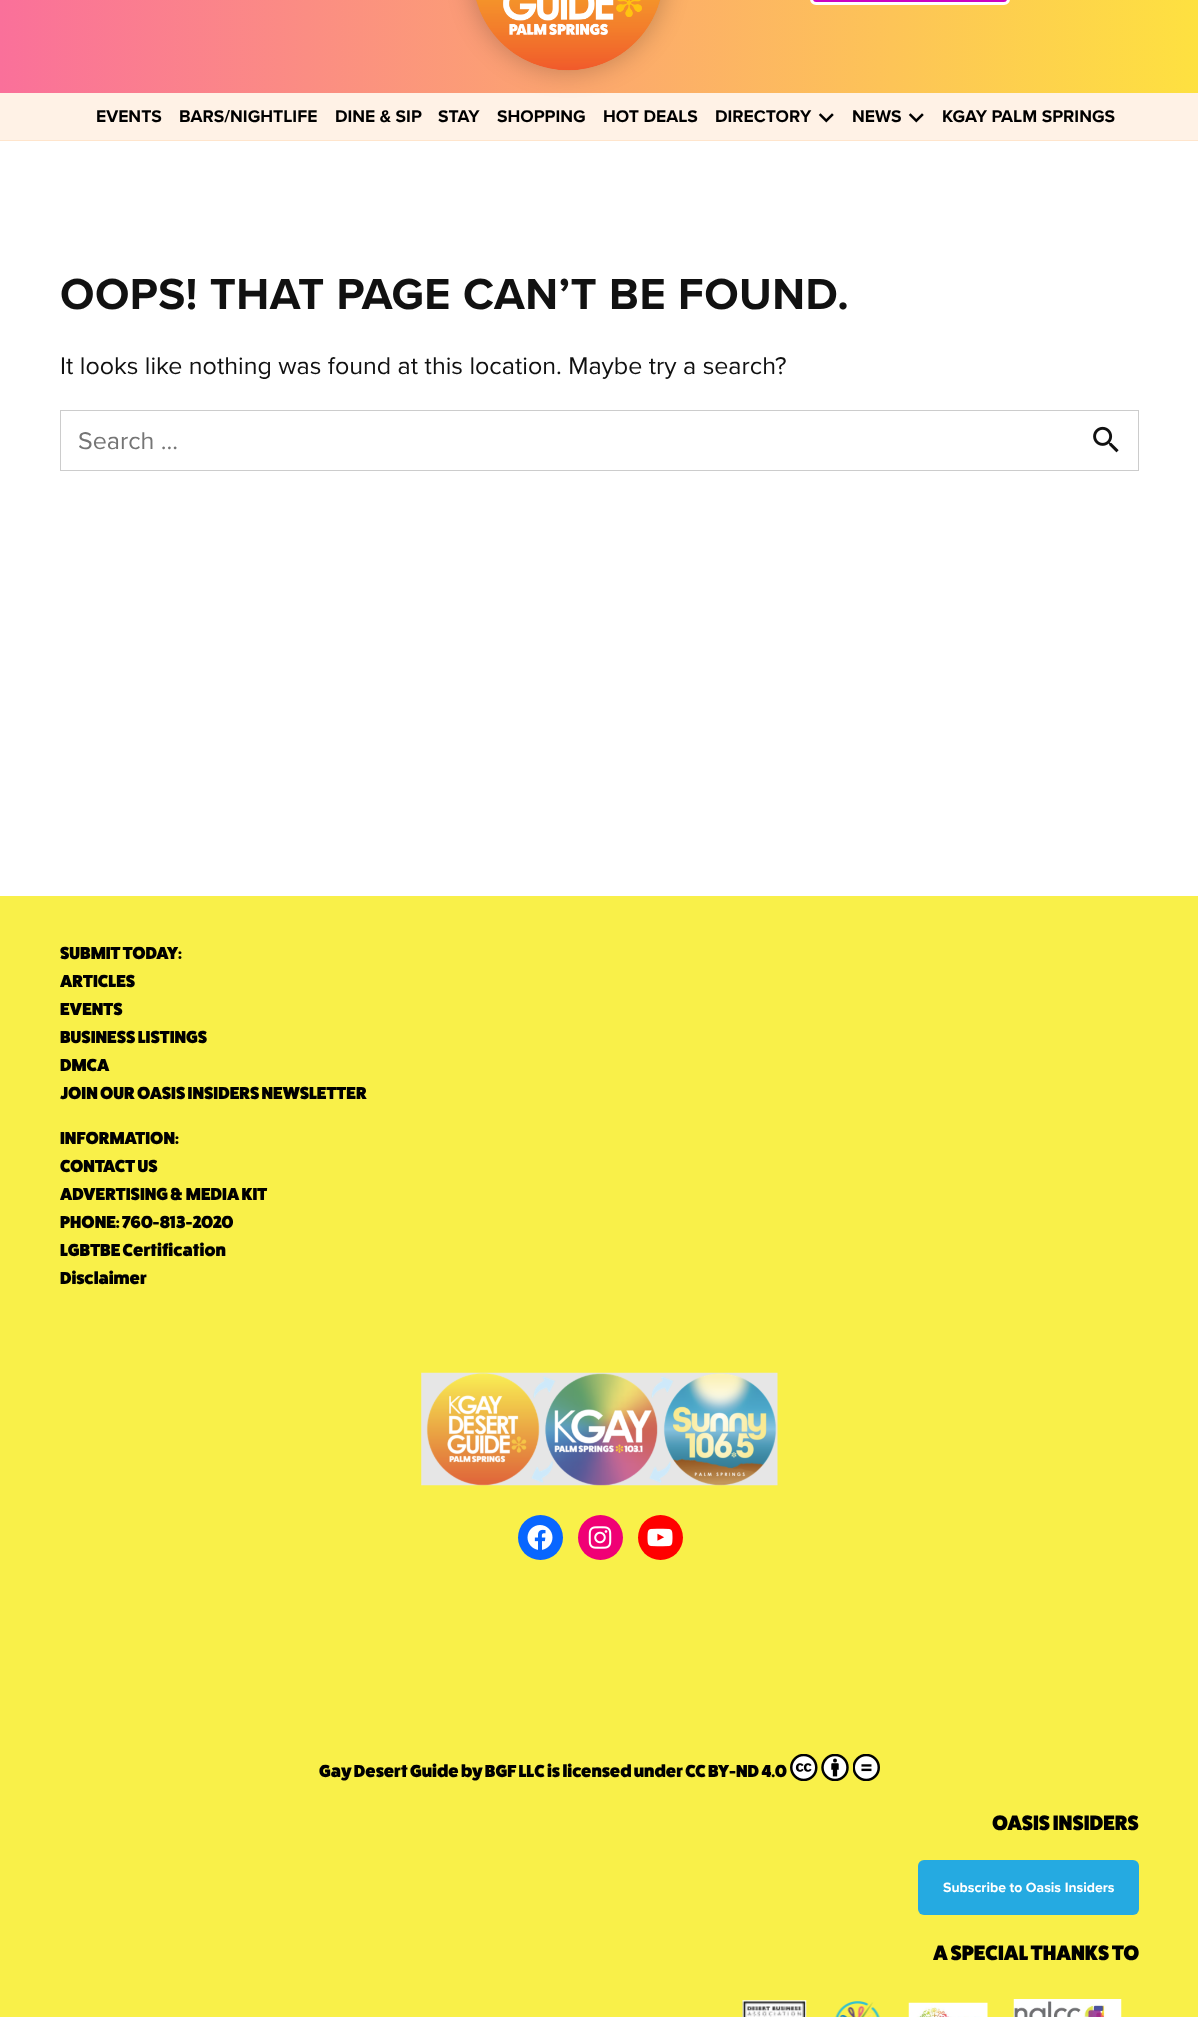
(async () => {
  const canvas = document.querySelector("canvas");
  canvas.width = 1198;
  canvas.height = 2017;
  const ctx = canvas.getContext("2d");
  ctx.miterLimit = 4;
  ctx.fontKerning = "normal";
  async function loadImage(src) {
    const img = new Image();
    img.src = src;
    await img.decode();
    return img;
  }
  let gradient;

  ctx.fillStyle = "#ffffff";
  ctx.fillRect(0, 0, 1198, 2017);
  gradient = ctx.createLinearGradient(0, -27, 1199, -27);
  gradient.addColorStop(0, "#fa709a");
  gradient.addColorStop(1, "#fee140");
  ctx.fillStyle = gradient;
  ctx.fillRect(0, 0, 1198, 93);
  ctx.fillStyle = "#cc03c3";
  ctx.beginPath();
  ctx.roundRect(811.5, -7.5, 197, 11, 4.5);
  ctx.fill();
  ctx.strokeStyle = "#ffffff";
  ctx.lineWidth = 3;
  ctx.stroke();
  ctx.fillStyle = "#fff2e6";
  ctx.fillRect(0, 93, 1198, 47);
  ctx.fillStyle = "rgba(0, 0, 0, 0.2)";
  ctx.filter = "blur(12.5px)";
  ctx.beginPath();
  ctx.roundRect(470, -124, 196, 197, 98);
  ctx.fill();
  ctx.filter = "none";
  ctx.drawImage(await loadImage("img/1.png"), 476, 0, 184, 71);
  ctx.fillStyle = "#ffe5cc";
  ctx.fillRect(0, 140, 1198, 1);
  ctx.drawImage(await loadImage("img/2.png"), 818, 113, 16, 10);
  ctx.drawImage(await loadImage("img/2.png"), 908, 113, 16, 10);
  ctx.strokeStyle = "#cccccc";
  ctx.lineWidth = 1;
  ctx.strokeRect(60.5, 410.5, 1078, 60);
  ctx.drawImage(await loadImage("img/3.png"), 1093, 426, 26, 27);
  ctx.fillStyle = "#f9f049";
  ctx.fillRect(0, 896, 1198, 1121);
  ctx.drawImage(await loadImage("img/4.png"), 421, 1372, 357, 114);
  ctx.fillStyle = "#0866ff";
  ctx.beginPath();
  ctx.arc(540.5, 1537.5, 22.5, 0, Math.PI * 2);
  ctx.fill();
  ctx.drawImage(await loadImage("img/5.png"), 527, 1525, 26, 25);
  ctx.fillStyle = "#f00075";
  ctx.beginPath();
  ctx.arc(600.5, 1537.5, 22.5, 0, Math.PI * 2);
  ctx.fill();
  ctx.drawImage(await loadImage("img/6.png"), 588, 1526, 24, 23);
  ctx.fillStyle = "#ff0000";
  ctx.beginPath();
  ctx.arc(660.5, 1537.5, 22.5, 0, Math.PI * 2);
  ctx.fill();
  ctx.drawImage(await loadImage("img/7.png"), 647, 1528, 26, 19);
  ctx.drawImage(await loadImage("img/8.png"), 790, 1754, 28, 27);
  ctx.drawImage(await loadImage("img/9.png"), 821, 1754, 28, 27);
  ctx.drawImage(await loadImage("img/10.png"), 853, 1754, 27, 27);
  ctx.fillStyle = "#25aae1";
  ctx.beginPath();
  ctx.roundRect(918, 1860, 221, 55, 6);
  ctx.fill();
  ctx.drawImage(await loadImage("img/11.png"), 742, 2000, 65, 17);
  ctx.drawImage(await loadImage("img/12.png"), 835, 2001, 45, 16);
  ctx.drawImage(await loadImage("img/13.png"), 908, 2002, 80, 15);
  ctx.drawImage(await loadImage("img/14.png"), 1013, 1999, 109, 18);
  ctx.font = "bold 17.5px Proxima Nova";
  ctx.fillStyle = "#000000";
  for (const [text, x, y] of [
    ["EVENTS", 96, 122],
    ["BARS/NIGHTLIFE", 179, 122],
    ["DINE & SIP", 335, 122],
    ["STAY", 438, 122],
    ["SHOPPING", 497, 122],
    ["HOT DEALS", 603, 122],
    ["DIRECTORY", 715, 122],
    ["NEWS", 852, 122],
    ["KGAY PALM SPRINGS", 942, 122],
  ]) {
    ctx.fillText(text, x, y);
  }
  ctx.letterSpacing = "0.45px";
  ctx.font = "bold 45px Proxima Nova";
  ctx.fillStyle = "#111111";
  ctx.fillText("OOPS! THAT PAGE CAN’T BE FOUND.", 60, 309);
  ctx.letterSpacing = "0px";
  ctx.font = "25px Proxima Nova";
  ctx.fillText("It looks like nothing was found at this location. Maybe try a search?", 60, 374);
  ctx.fillStyle = "#757575";
  ctx.fillText("Search …", 78, 449);
  ctx.font = "900 17.5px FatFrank";
  ctx.fillStyle = "#000000";
  for (const [text, x, y] of [
    ["SUBMIT TODAY:", 60, 959],
    ["ARTICLES", 60, 987],
    ["EVENTS", 60, 1015],
    ["BUSINESS LISTINGS", 60, 1043],
    ["DMCA", 60, 1071],
    ["JOIN OUR OASIS INSIDERS NEWSLETTER", 60, 1099],
    ["INFORMATION:", 60, 1144],
    ["CONTACT US", 60, 1172],
    ["ADVERTISING & MEDIA KIT", 60, 1200],
    ["PHONE: 760-813-2020", 60, 1228],
    ["LGBTBE Certification", 60, 1256],
    ["Disclaimer", 60, 1284],
    ["Gay Desert Guide by BGF LLC is licensed under CC BY-ND 4.0", 319, 1777],
  ]) {
    ctx.fillText(text, x, y);
  }
  ctx.font = "900 21px FatFrank";
  ctx.fillText("OASIS INSIDERS", 992, 1830);
  ctx.font = "bold 14px Proxima Nova";
  ctx.fillStyle = "#ffffff";
  ctx.fillText("Subscribe to Oasis Insiders", 943, 1892);
  ctx.font = "900 21px FatFrank";
  ctx.fillStyle = "#000000";
  ctx.fillText("A SPECIAL THANKS TO", 933, 1960);
})();
